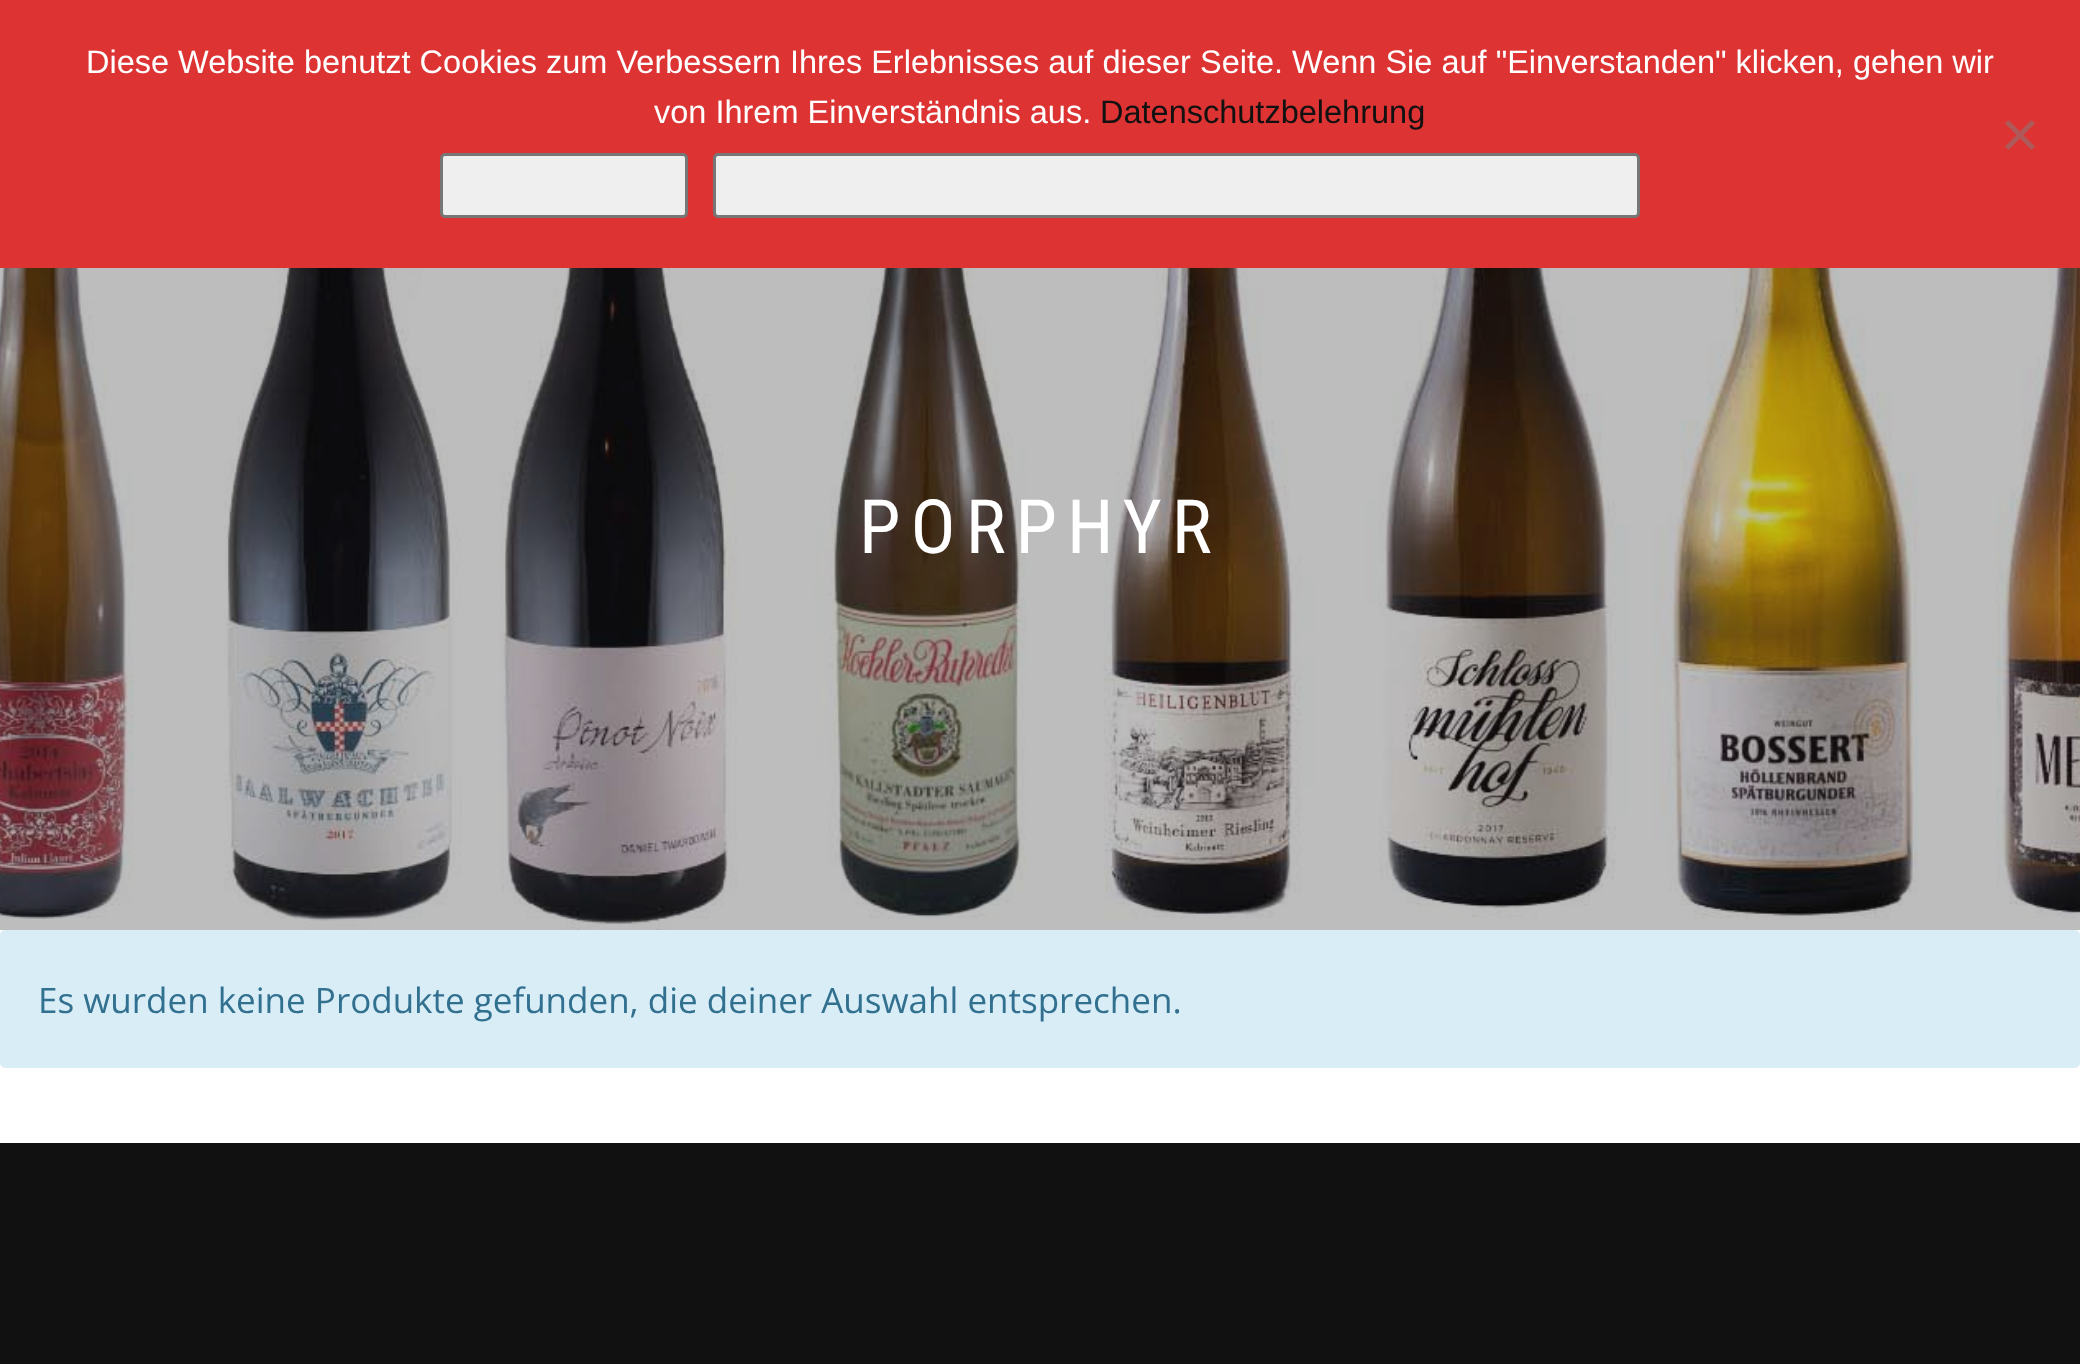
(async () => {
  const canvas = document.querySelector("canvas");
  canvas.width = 2080;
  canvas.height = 1364;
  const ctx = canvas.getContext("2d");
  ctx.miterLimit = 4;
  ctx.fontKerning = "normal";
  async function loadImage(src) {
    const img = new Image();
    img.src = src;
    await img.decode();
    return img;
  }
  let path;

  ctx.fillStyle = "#ffffff";
  ctx.fillRect(0, 0, 2080, 1364);
  ctx.fillStyle = "#dd3333";
  ctx.fillRect(0, 0, 2080, 268);
  ctx.fillStyle = "#af5a5a";
  path = new Path2D("M2031.5 120L2035 123.5L2008.5 150L2005 146.5Z");
  ctx.fill(path);
  path = new Path2D("M2005 123.5L2008.5 120L2035 146.5L2031.5 150Z");
  ctx.fill(path);
  ctx.fillStyle = "#efefef";
  ctx.beginPath();
  ctx.roundRect(441.5, 154.5, 245, 62, 3.5);
  ctx.fill();
  ctx.strokeStyle = "#767676";
  ctx.lineWidth = 3;
  ctx.stroke();
  ctx.beginPath();
  ctx.roundRect(714.5, 154.5, 924, 62, 3.5);
  ctx.fill();
  ctx.stroke();
  ctx.drawImage(await loadImage("img/1.png"), 0, 268, 2080, 662);
  ctx.fillStyle = "#d9edf7";
  ctx.beginPath();
  ctx.roundRect(0, 930, 2080, 138, 5);
  ctx.fill();
  ctx.fillStyle = "#111111";
  ctx.fillRect(0, 1143, 2080, 221);
  ctx.font = "32.5px Liberation Sans";
  ctx.fillStyle = "#ffffff";
  ctx.fillText("Diese Website benutzt Cookies zum Verbessern Ihres Erlebnisses auf dieser Seite. Wenn Sie auf \"Einverstanden\" klicken, gehen wir", 86, 73);
  ctx.fillText("von Ihrem Einverständnis aus.", 654, 123);
  ctx.fillStyle = "#111111";
  ctx.fillText("Datenschutzbelehrung", 1100, 123);
  ctx.letterSpacing = "10px";
  ctx.font = "75px Roboto Condensed";
  ctx.fillStyle = "#ffffff";
  ctx.fillText("PORPHYR", 859, 553);
  ctx.letterSpacing = "0px";
  ctx.font = "35px Open Sans";
  ctx.fillStyle = "#31708f";
  ctx.fillText("Es wurden keine Produkte gefunden, die deiner Auswahl entsprechen.", 38, 1013);
})();
